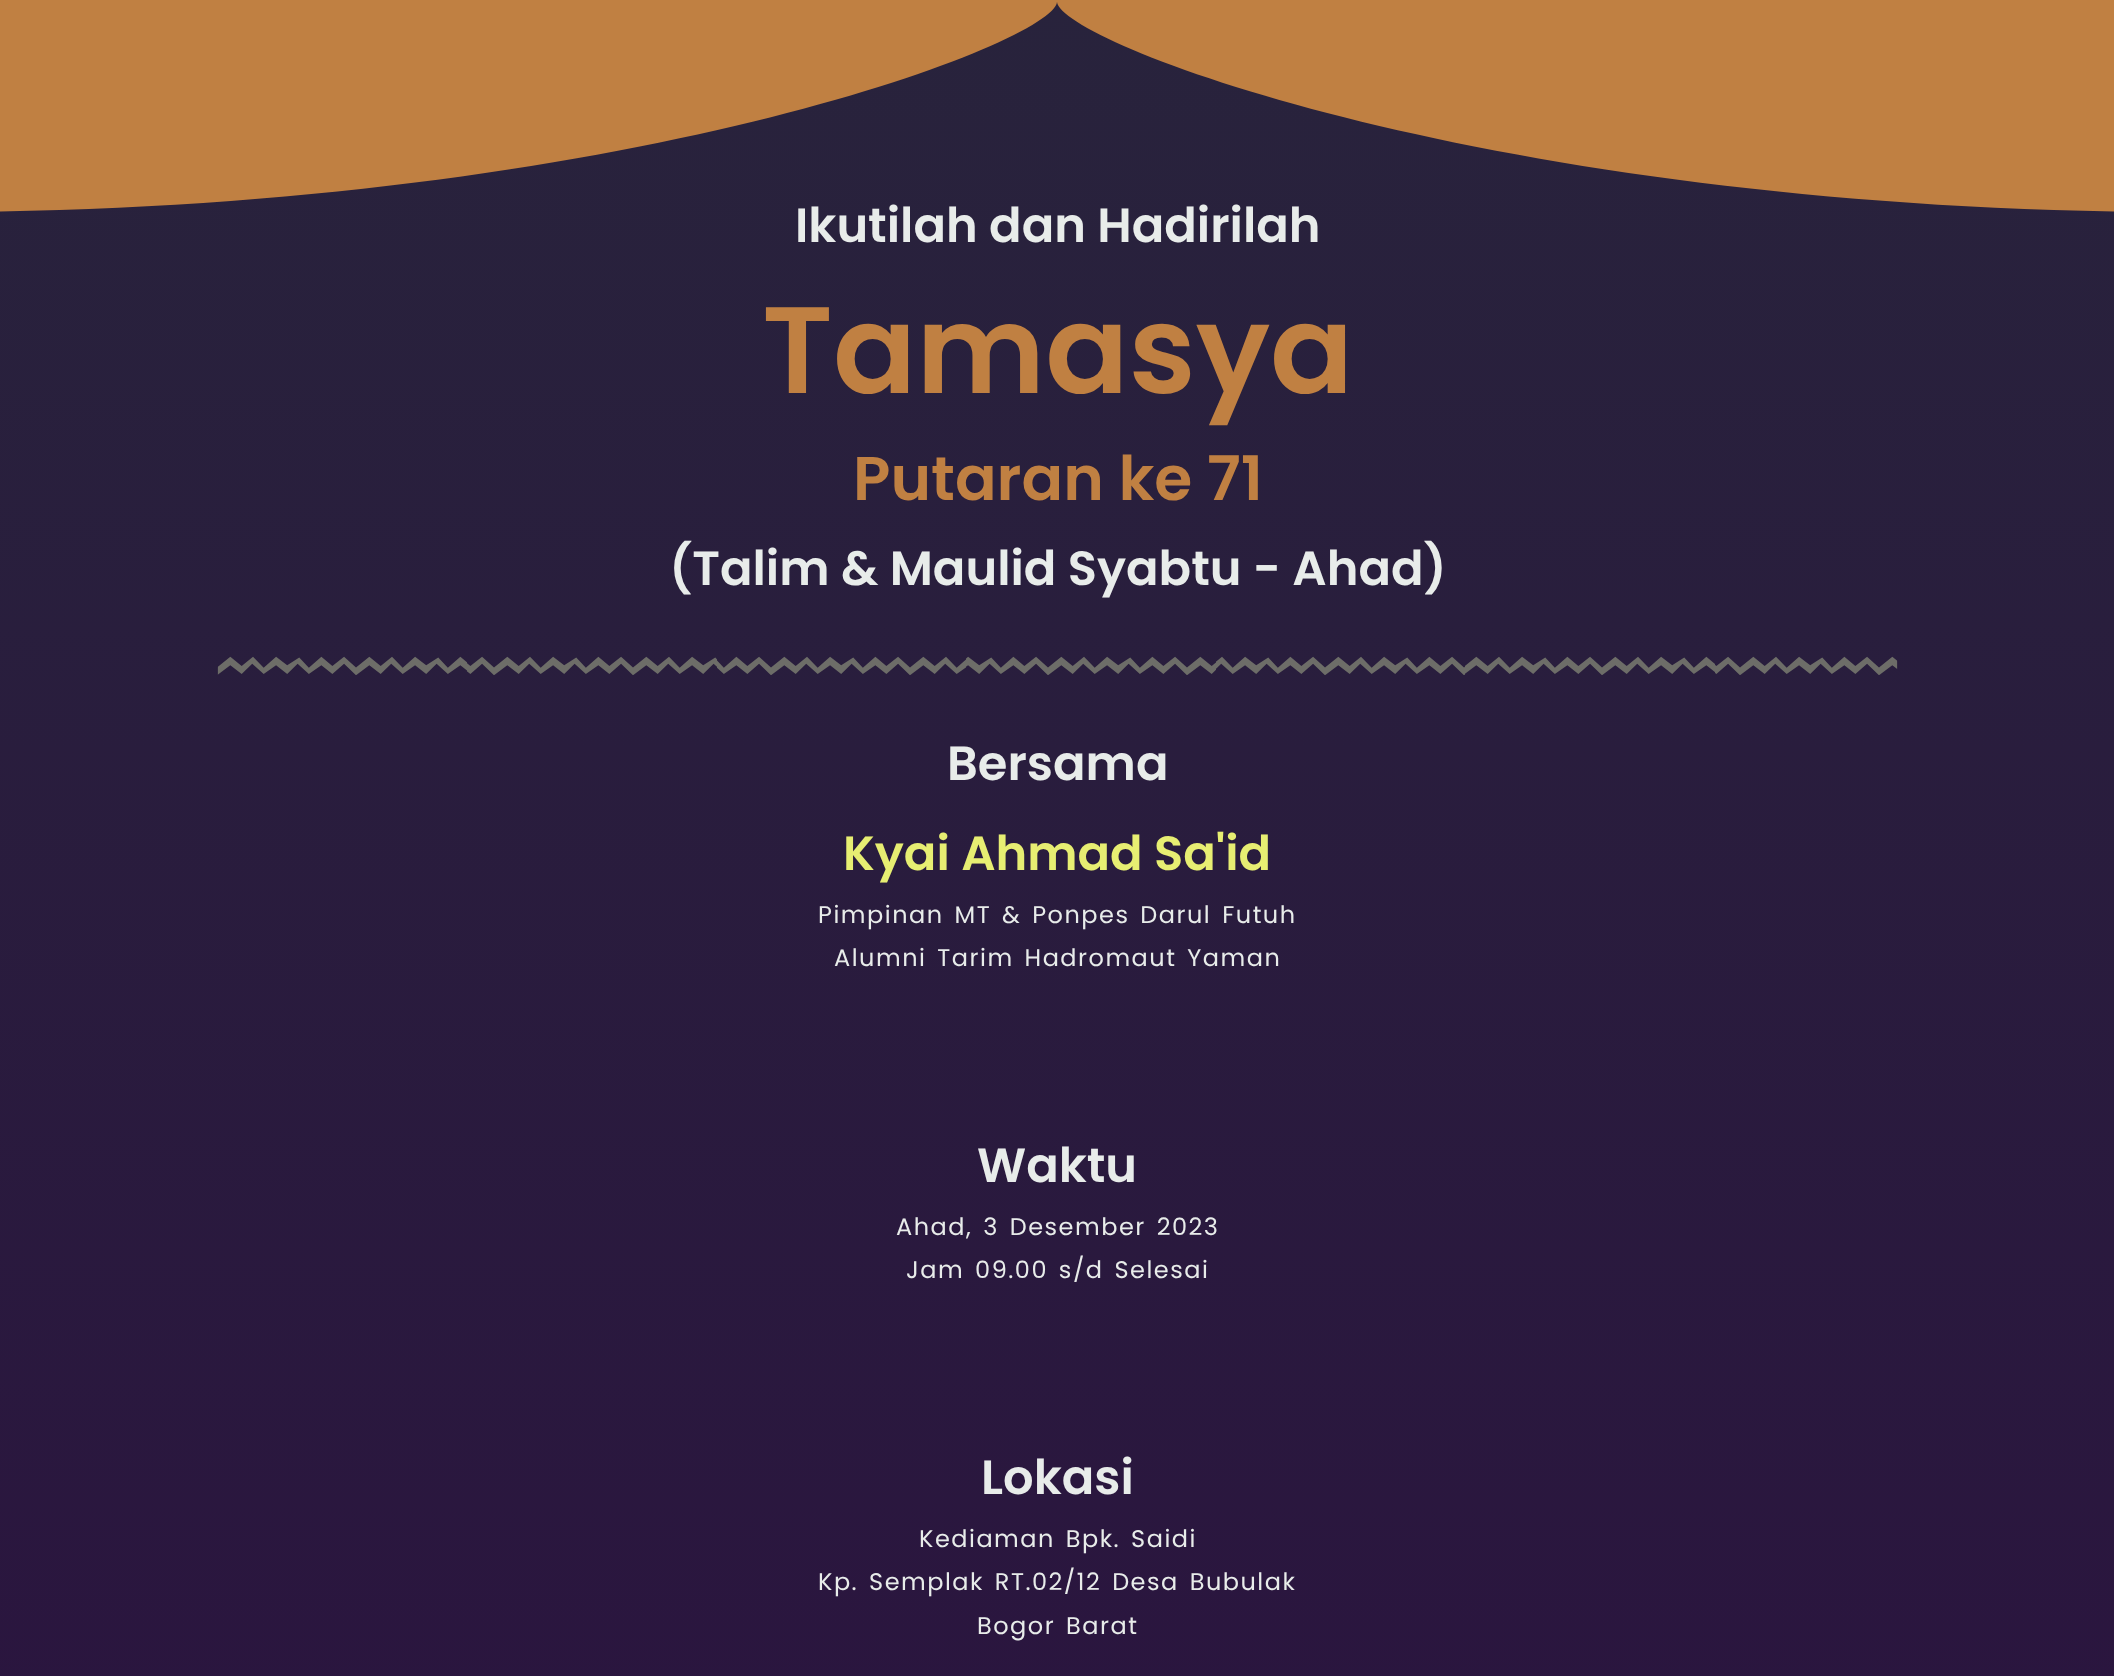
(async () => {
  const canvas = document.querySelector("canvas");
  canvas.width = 2114;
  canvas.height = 1676;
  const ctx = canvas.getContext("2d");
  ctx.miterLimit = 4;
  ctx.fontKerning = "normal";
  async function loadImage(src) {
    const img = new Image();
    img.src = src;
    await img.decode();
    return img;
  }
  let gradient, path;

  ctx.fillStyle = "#ffffff";
  ctx.fillRect(0, 0, 2114, 1676);
  gradient = ctx.createLinearGradient(1057, 0, 1058, 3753);
  gradient.addColorStop(0, "#28233c");
  gradient.addColorStop(1, "#2d0542");
  ctx.fillStyle = gradient;
  ctx.fillRect(0, 2, 2114, 1674);
  ctx.fillStyle = "#c08042";
  path = new Path2D("M-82 212C613 214 1054 43 1057 2C1061 43 1502 214 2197 212C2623 212 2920 213 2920 213V-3L-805-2V213C-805 213-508 212-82 212Z");
  ctx.fill(path);
  ctx.drawImage(await loadImage("img/1.png"), 217, 656, 1681, 19);
  ctx.font = "600 48px Poppins";
  ctx.fillStyle = "#e8ecea";
  ctx.fillText("Ikutilah dan Hadirilah", 795, 242);
  ctx.font = "600 123px Poppins";
  ctx.fillStyle = "#c08042";
  ctx.fillText("Tamasya", 762, 393);
  ctx.font = "600 61.5px Poppins";
  ctx.fillText("Putaran ke 71", 853, 500);
  ctx.font = "600 48px Poppins";
  ctx.fillStyle = "#e8ecea";
  ctx.fillText("(Talim & Maulid Syabtu - Ahad)", 669, 585);
  ctx.fillText("Bersama", 947, 780);
  ctx.fillStyle = "#e7ee72";
  ctx.fillText("Kyai Ahmad Sa'id", 843, 870);
  ctx.letterSpacing = "1.5px";
  ctx.wordSpacing = "3px";
  ctx.font = "24px Poppins";
  ctx.fillStyle = "#e8ecea";
  ctx.fillText("Pimpinan MT & Ponpes Darul Futuh", 818, 923);
  ctx.fillText("Alumni Tarim Hadromaut Yaman", 834, 966);
  ctx.letterSpacing = "0px";
  ctx.wordSpacing = "0px";
  ctx.font = "600 48px Poppins";
  ctx.fillText("Waktu", 977, 1182);
  ctx.letterSpacing = "1.5px";
  ctx.wordSpacing = "3px";
  ctx.font = "24px Poppins";
  ctx.fillText("Ahad, 3 Desember 2023", 896, 1235);
  ctx.fillText("Jam 09.00 s/d Selesai", 906, 1278);
  ctx.letterSpacing = "0px";
  ctx.wordSpacing = "0px";
  ctx.font = "600 48px Poppins";
  ctx.fillText("Lokasi", 981, 1494);
  ctx.letterSpacing = "1.5px";
  ctx.wordSpacing = "3px";
  ctx.font = "24px Poppins";
  for (const [text, x, y] of [
    ["Kediaman Bpk. Saidi", 919, 1547],
    ["Kp. Semplak RT.02/12 Desa Bubulak", 818, 1590],
    ["Bogor Barat", 977, 1634],
  ]) {
    ctx.fillText(text, x, y);
  }
})();
